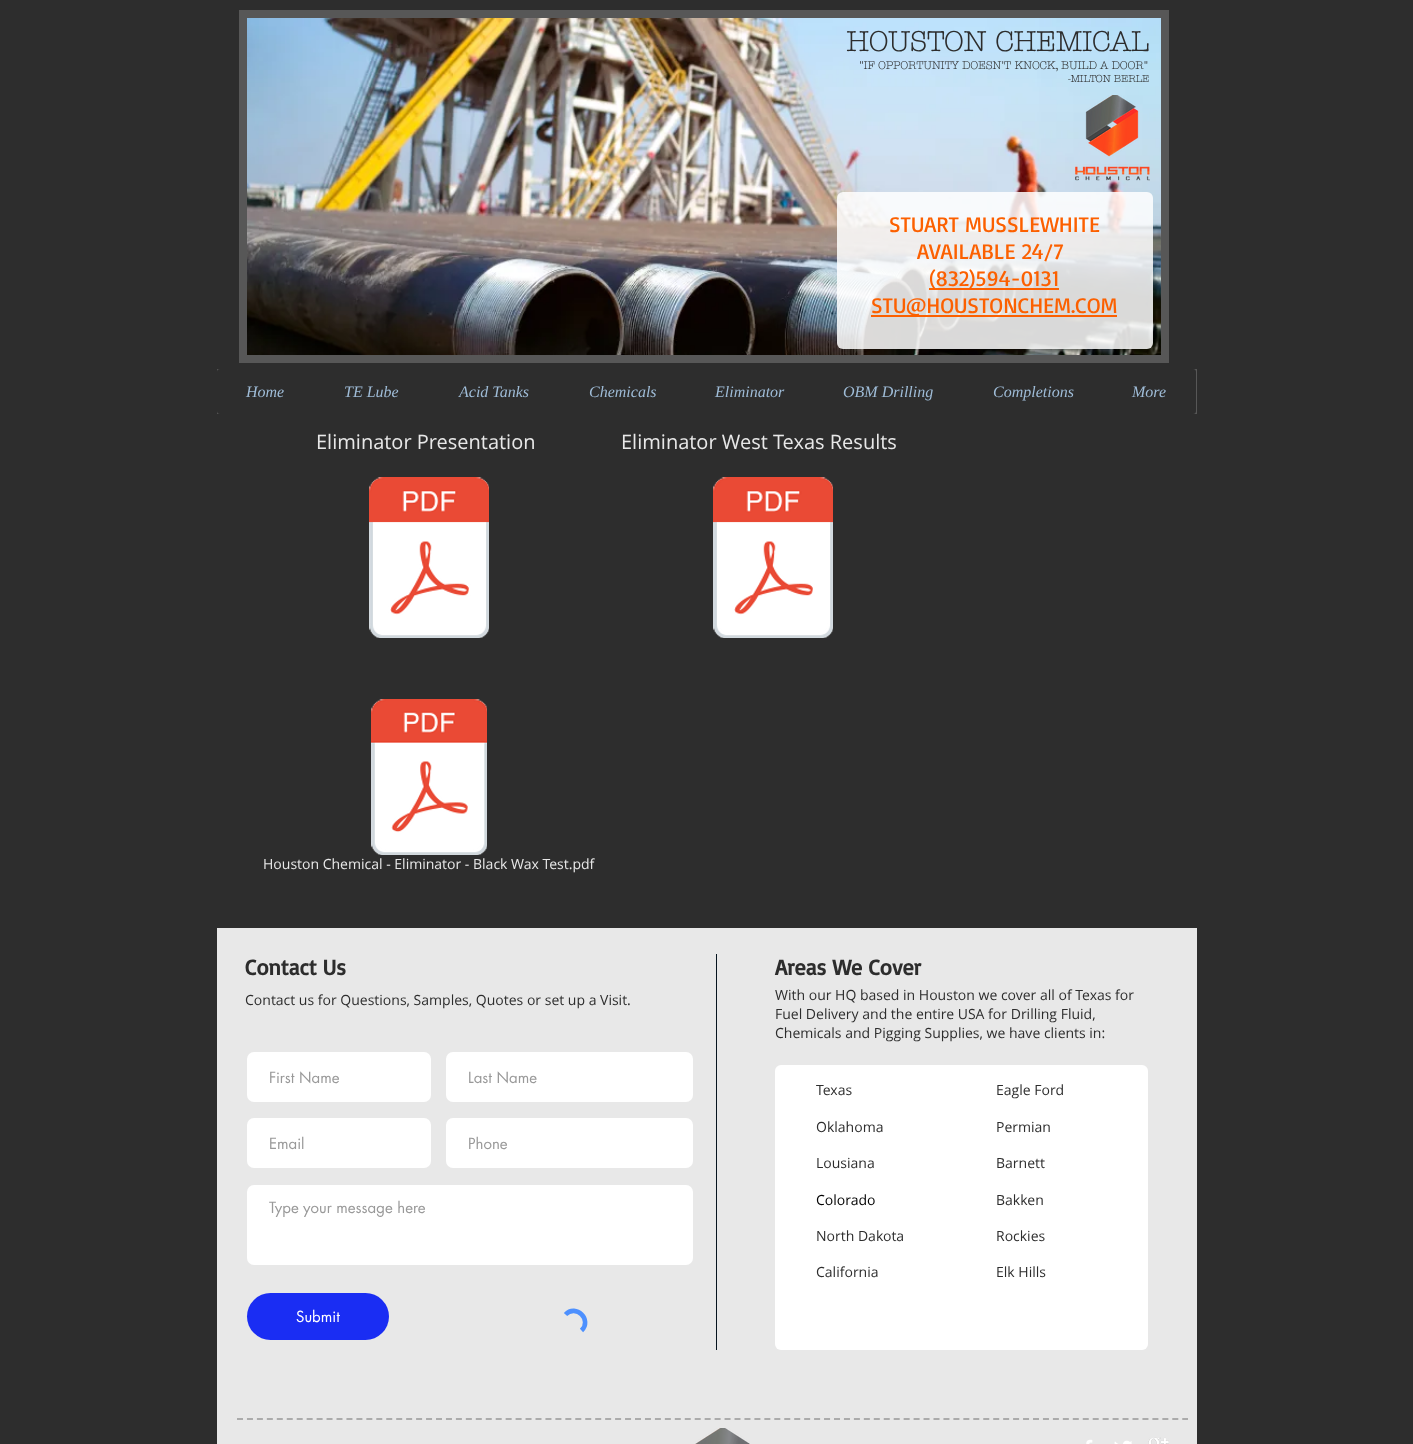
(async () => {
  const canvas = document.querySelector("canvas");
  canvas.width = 1413;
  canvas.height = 1444;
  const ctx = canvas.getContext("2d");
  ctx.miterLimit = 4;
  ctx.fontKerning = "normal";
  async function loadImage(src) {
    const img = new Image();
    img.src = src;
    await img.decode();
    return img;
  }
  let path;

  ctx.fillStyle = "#2d2d2d";
  ctx.fillRect(0, 0, 1413, 1444);
  ctx.fillStyle = "#575757";
  ctx.fillRect(239, 10, 930, 353);
  ctx.drawImage(await loadImage("img/1.png"), 247, 18, 914, 337);
  ctx.drawImage(await loadImage("img/2.png"), 1075, 95, 75, 86);
  ctx.fillStyle = "rgba(255, 255, 255, 0.85)";
  ctx.beginPath();
  ctx.roundRect(837, 192, 316, 157, 6);
  ctx.fill();
  for (const [x, y, w, h, color] of [
    [929, 288, 130, 2, "#fc6000"],
    [871, 315, 246, 2, "#fc6000"],
    [217, 369, 980, 45, "#575757"],
  ]) {
    ctx.fillStyle = color;
    ctx.fillRect(x, y, w, h);
  }
  ctx.fillStyle = "#2d2d2d";
  ctx.beginPath();
  ctx.roundRect(217, 369, 979, 45, 3);
  ctx.fill();
  ctx.drawImage(await loadImage("img/3.png"), 369, 477, 120, 161);
  ctx.drawImage(await loadImage("img/3.png"), 713, 477, 120, 161);
  ctx.drawImage(await loadImage("img/4.png"), 371, 699, 116, 156);
  ctx.fillStyle = "#e8e8e8";
  ctx.fillRect(217, 928, 980, 516);
  ctx.fillStyle = "#06141f";
  ctx.fillRect(716, 954, 1, 396);
  ctx.fillStyle = "#ffffff";
  ctx.beginPath();
  ctx.roundRect(247, 1052, 184, 50, 7);
  ctx.fill();
  ctx.beginPath();
  ctx.roundRect(446, 1052, 247, 50, 7);
  ctx.fill();
  ctx.beginPath();
  ctx.roundRect(247, 1118, 184, 50, 7);
  ctx.fill();
  ctx.beginPath();
  ctx.roundRect(446, 1118, 247, 50, 7);
  ctx.fill();
  ctx.beginPath();
  ctx.roundRect(247, 1185, 446, 80, 7);
  ctx.fill();
  ctx.fillStyle = "#1a2df3";
  ctx.beginPath();
  ctx.roundRect(247, 1293, 142, 47, 23.5);
  ctx.fill();
  path = new Path2D("M565.5 1314.5C576 1303.5 592.5 1320 581.5 1330.5");
  ctx.strokeStyle = "#4d90fe";
  ctx.lineWidth = 4.6;
  ctx.stroke(path);
  ctx.fillStyle = "#ffffff";
  ctx.beginPath();
  ctx.roundRect(775, 1065, 373, 285, 6);
  ctx.fill();
  path = new Path2D("M237 1419H1188");
  ctx.strokeStyle = "#ababab";
  ctx.lineWidth = 2;
  ctx.setLineDash([6, 3.95]);
  ctx.stroke(path);
  ctx.drawImage(await loadImage("img/5.png"), 695, 1428, 55, 16);
  ctx.drawImage(await loadImage("img/6.png"), 1086, 1439, 7, 5);
  ctx.drawImage(await loadImage("img/7.png"), 1114, 1440, 18, 4);
  ctx.drawImage(await loadImage("img/8.png"), 1148, 1437, 21, 7);
  ctx.font = "bold 28px 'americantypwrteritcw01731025'";
  ctx.fillStyle = "#2d2d2d";
  ctx.fillText("HOUSTON CHEMICAL", 846, 51);
  ctx.font = "bold 11px 'americantypwrteritcw01731025'";
  ctx.fillText("\"IF OPPORTUNITY DOESN'T KNOCK, BUILD A DOOR\"", 859, 69);
  ctx.font = "bold 10px 'americantypwrteritcw01731025'";
  ctx.fillText("-MILTON BERLE", 1068, 82);
  ctx.font = "22px Basic";
  ctx.fillStyle = "#fc6000";
  for (const [text, x, y] of [
    ["STUART MUSSLEWHITE", 889, 232],
    ["AVAILABLE 24/7", 917, 259],
    ["(832)594-0131", 929, 286],
    ["STU@HOUSTONCHEM.COM", 871, 313],
  ]) {
    ctx.fillText(text, x, y);
  }
  ctx.font = "italic 16px Liberation Serif";
  ctx.fillStyle = "#9fbcd7";
  for (const [text, x, y] of [
    ["Home", 246, 397],
    ["TE Lube", 344, 397],
    ["Acid Tanks", 459, 397],
    ["Chemicals", 589, 397],
    ["Eliminator", 715, 397],
    ["OBM Drilling", 843, 397],
    ["Completions", 993, 397],
    ["More", 1132, 397],
  ]) {
    ctx.fillText(text, x, y);
  }
  ctx.font = "20px Open Sans";
  ctx.fillStyle = "#e8e8e8";
  ctx.fillText("Eliminator Presentation", 316, 449);
  ctx.fillText("Eliminator West Texas Results", 621, 449);
  ctx.font = "14px Open Sans";
  ctx.fillText("Houston Chemical - Eliminator - Black Wax Test.pdf", 263, 869);
  ctx.font = "bold 22px Basic";
  ctx.fillStyle = "#2d2d2d";
  ctx.fillText("Contact Us", 245, 975);
  ctx.fillText("Areas We Cover", 775, 975);
  ctx.font = "14px Open Sans";
  for (const [text, x, y] of [
    ["Contact us for Questions, Samples, Quotes or set up a Visit.", 245, 1005],
    ["With our HQ based in Houston we cover all of Texas for", 775, 1000],
    ["Fuel Delivery and the entire USA for Drilling Fluid,", 775, 1019],
    ["Chemicals and Pigging Supplies, we have clients in:", 775, 1038],
  ]) {
    ctx.fillText(text, x, y);
  }
  ctx.font = "15px futura";
  ctx.fillStyle = "#999999";
  for (const [text, x, y] of [
    ["First Name", 269, 1083],
    ["Last Name", 468, 1083],
    ["Email", 269, 1149],
    ["Phone", 468, 1149],
    ["Type your message here", 269, 1213],
  ]) {
    ctx.fillText(text, x, y);
  }
  ctx.fillStyle = "#ffffff";
  ctx.fillText("Submit", 296, 1322);
  ctx.font = "14px Open Sans";
  ctx.fillStyle = "#2d2d2d";
  for (const [text, x, y] of [
    ["Texas", 816, 1095],
    ["Oklahoma", 816, 1132],
    ["Lousiana", 816, 1168],
  ]) {
    ctx.fillText(text, x, y);
  }
  ctx.fillStyle = "#000000";
  ctx.fillText("Colorado", 816, 1205);
  ctx.fillStyle = "#2d2d2d";
  for (const [text, x, y] of [
    ["North Dakota", 816, 1241],
    ["California", 816, 1277],
    ["Eagle Ford", 996, 1095],
    ["Permian", 996, 1132],
    ["Barnett", 996, 1168],
    ["Bakken", 996, 1205],
    ["Rockies", 996, 1241],
    ["Elk Hills", 996, 1277],
  ]) {
    ctx.fillText(text, x, y);
  }
})();
